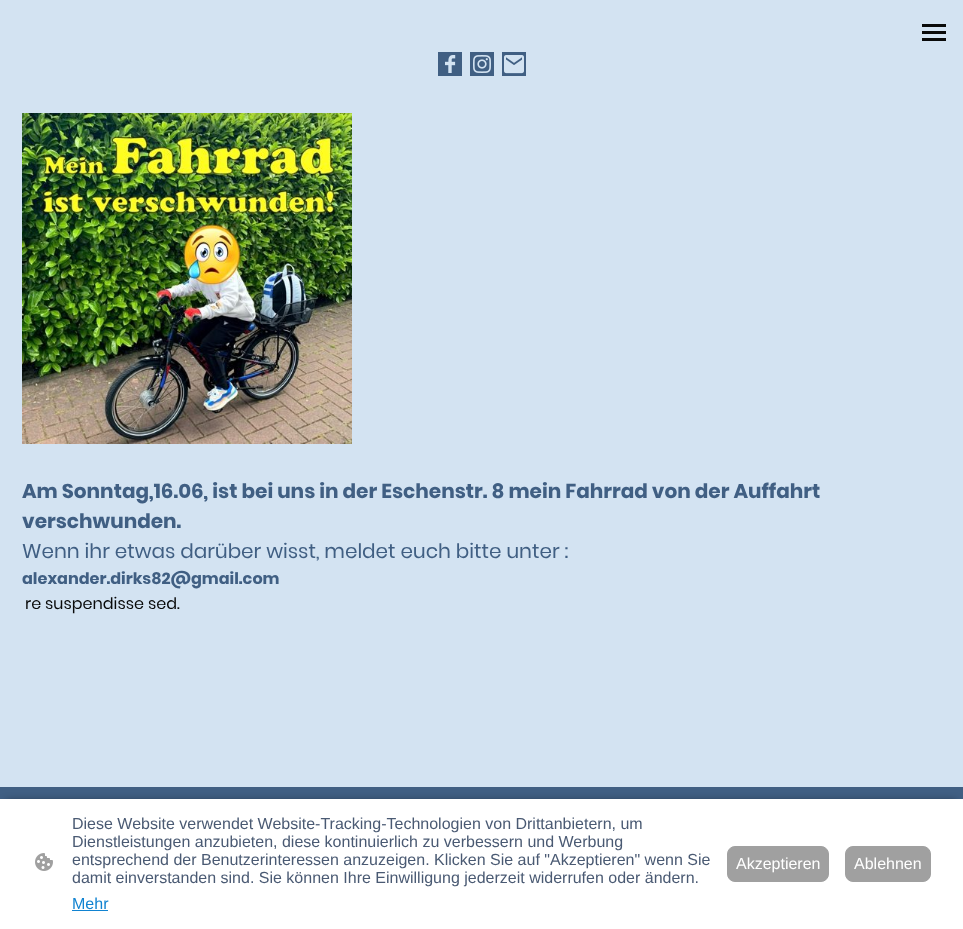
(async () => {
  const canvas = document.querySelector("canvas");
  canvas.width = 963;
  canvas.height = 929;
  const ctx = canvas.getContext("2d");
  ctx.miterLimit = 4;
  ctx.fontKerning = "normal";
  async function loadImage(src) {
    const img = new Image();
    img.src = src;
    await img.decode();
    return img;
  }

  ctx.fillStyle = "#d3e3f2";
  ctx.fillRect(0, 0, 963, 929);
  for (const [x, y, w, h, color] of [
    [922, 24, 24, 3, "#090a0a"],
    [922, 31, 24, 3, "#090a0a"],
    [922, 38, 24, 3, "#090a0a"],
  ]) {
    ctx.fillStyle = color;
    ctx.fillRect(x, y, w, h);
  }
  ctx.drawImage(await loadImage("img/1.png"), 438, 52, 24, 24);
  ctx.drawImage(await loadImage("img/2.png"), 470, 52, 24, 24);
  ctx.drawImage(await loadImage("img/3.png"), 502, 52, 24, 24);
  ctx.drawImage(await loadImage("img/4.png"), 22, 113, 330, 331);
  ctx.fillStyle = "#405f83";
  ctx.fillRect(0, 787, 963, 12);
  ctx.fillStyle = "rgba(0, 0, 0, 0.63)";
  ctx.filter = "blur(4px)";
  ctx.beginPath();
  ctx.rect(6, 802, 951, 118);
  ctx.fill();
  ctx.filter = "none";
  ctx.fillStyle = "#ffffff";
  ctx.fillRect(0, 799, 963, 130);
  ctx.drawImage(await loadImage("img/5.png"), 35, 853, 18, 18);
  ctx.fillStyle = "#1183d1";
  ctx.fillRect(72, 910, 36, 1);
  ctx.fillStyle = "#a0a0a0";
  ctx.beginPath();
  ctx.roundRect(727.5, 846.5, 101, 35, 7.5);
  ctx.fill();
  ctx.strokeStyle = "#a0a0a0";
  ctx.stroke();
  ctx.beginPath();
  ctx.roundRect(845.5, 846.5, 85, 35, 7.5);
  ctx.fill();
  ctx.stroke();
  ctx.font = "bold 20px Poppins";
  ctx.fillStyle = "#405f83";
  ctx.fillText("Am Sonntag,16.06, ist bei uns in der Eschenstr. 8 mein Fahrrad von der Auffahrt", 22, 498);
  ctx.fillText("verschwunden.", 22, 528);
  ctx.font = "20px Poppins";
  ctx.fillText("Wenn ihr etwas darüber wisst, meldet euch bitte unter :", 22, 558);
  ctx.font = "bold 16px Poppins";
  ctx.fillText("alexander.dirks82@gmail.com", 22, 584);
  ctx.font = "16px Poppins";
  ctx.fillStyle = "#090a0a";
  ctx.fillText("re suspendisse sed.", 25, 609);
  ctx.font = "16px Liberation Sans";
  ctx.fillStyle = "#4a5a73";
  for (const [text, x, y] of [
    ["Diese Website verwendet Website-Tracking-Technologien von Drittanbietern, um", 72, 829],
    ["Dienstleistungen anzubieten, diese kontinuierlich zu verbessern und Werbung", 72, 847],
    ["entsprechend der Benutzerinteressen anzuzeigen. Klicken Sie auf \"Akzeptieren\" wenn Sie", 72, 865],
    ["damit einverstanden sind. Sie können Ihre Einwilligung jederzeit widerrufen oder ändern.", 72, 883],
  ]) {
    ctx.fillText(text, x, y);
  }
  ctx.fillStyle = "#1183d1";
  ctx.fillText("Mehr", 72, 909);
  ctx.fillStyle = "#ffffff";
  ctx.fillText("Akzeptieren", 736, 869);
  ctx.fillText("Ablehnen", 854, 869);
})();
